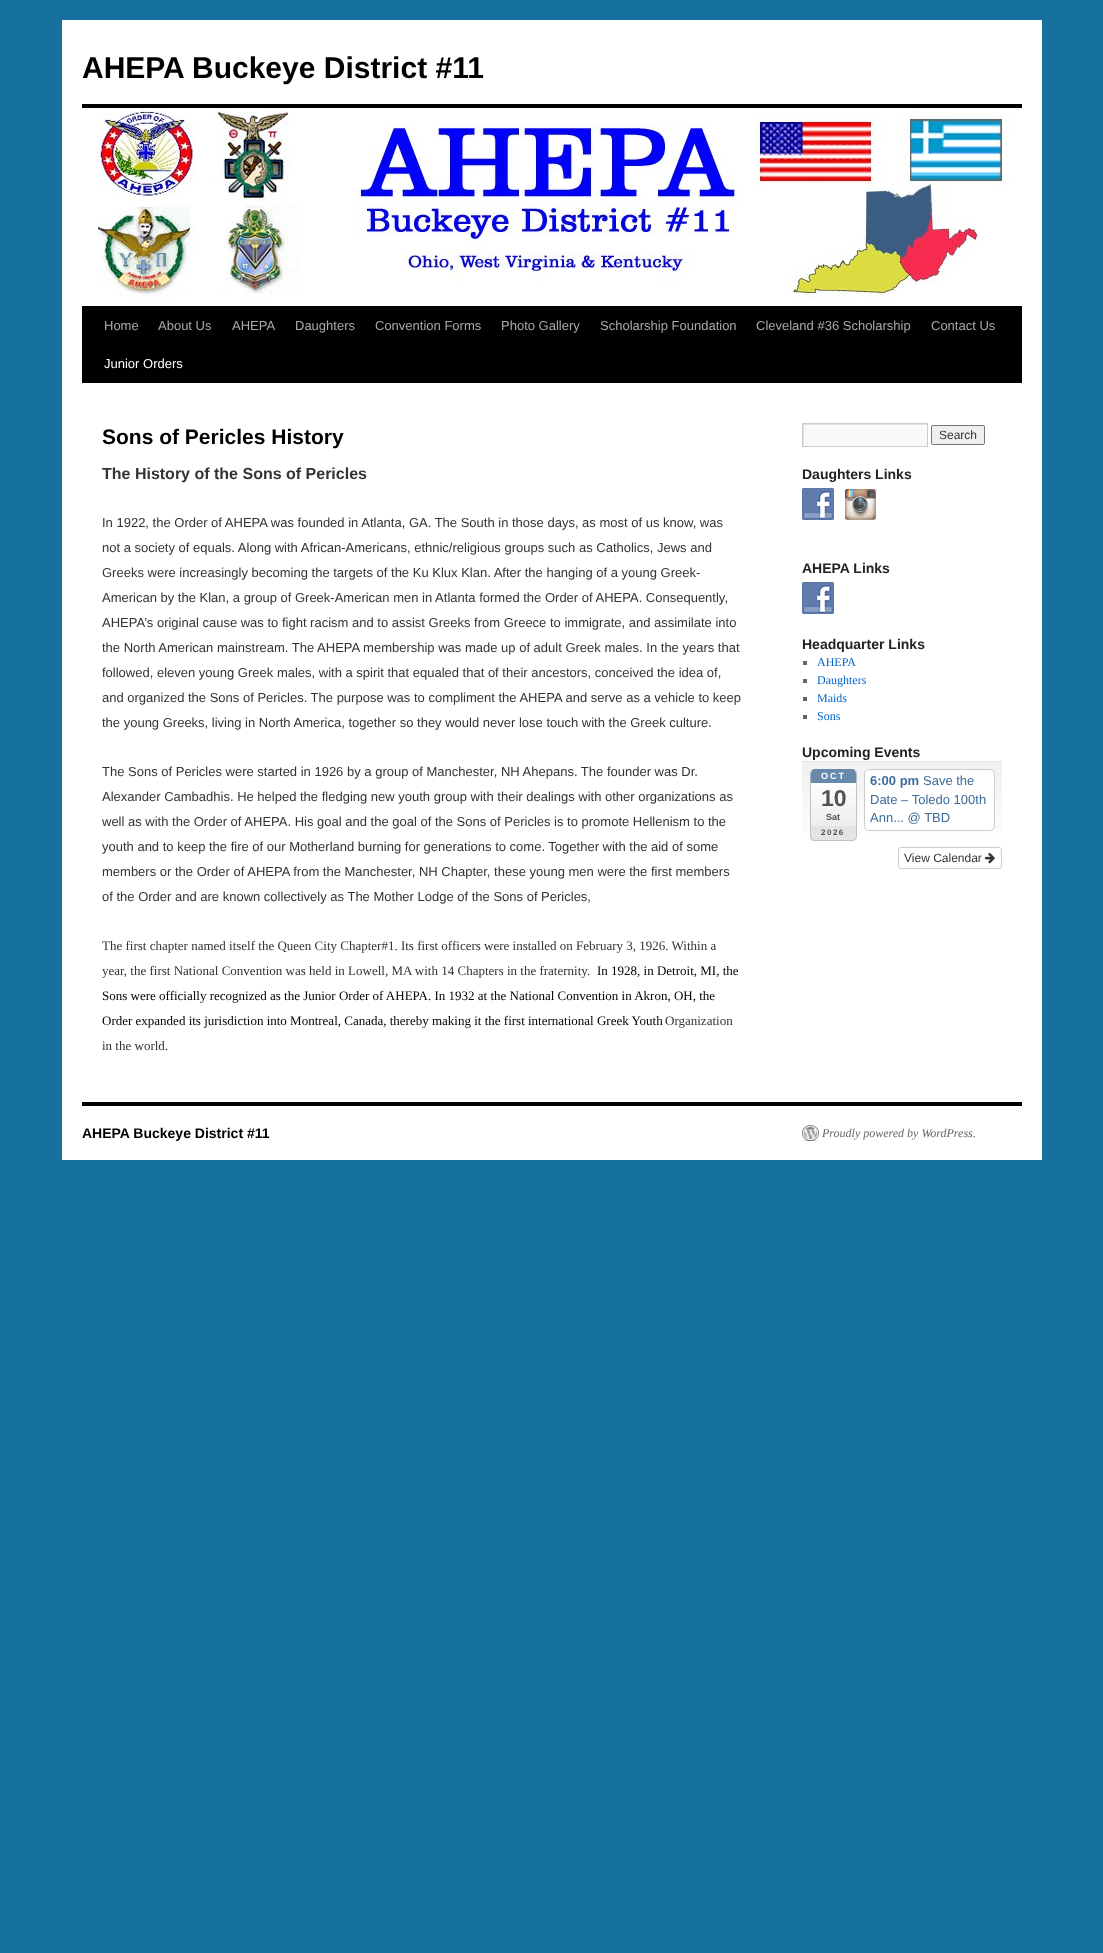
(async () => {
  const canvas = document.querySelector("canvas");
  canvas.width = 1103;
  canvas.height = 1953;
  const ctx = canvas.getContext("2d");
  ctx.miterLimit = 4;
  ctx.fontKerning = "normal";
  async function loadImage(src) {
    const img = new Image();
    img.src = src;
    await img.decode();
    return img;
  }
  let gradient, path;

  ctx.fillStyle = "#17719e";
  ctx.fillRect(0, 0, 1103, 1953);
  for (const [x, y, w, h, color] of [
    [62, 20, 980, 1140, "#ffffff"],
    [82, 104, 940, 4, "#000000"],
    [82, 306, 940, 77, "#000000"],
  ]) {
    ctx.fillStyle = color;
    ctx.fillRect(x, y, w, h);
  }
  ctx.drawImage(await loadImage("img/1.png"), 97, 108, 913, 192);
  ctx.fillStyle = "#f9f9f9";
  ctx.fillRect(804, 425, 123, 21);
  ctx.save();
  ctx.beginPath();
  ctx.rect(803, 424, 124, 22);
  ctx.clip();
  ctx.fillStyle = "#e0e0e0";
  path = new Path2D("M704 325H1026V545H704ZM804 425H928V447H804Z");
  ctx.fill(path, "evenodd");
  ctx.restore();
  ctx.strokeStyle = "#cccccc";
  ctx.strokeRect(802.5, 423.5, 125, 23);
  ctx.fillStyle = "#efefef";
  ctx.beginPath();
  ctx.roundRect(931.5, 425.5, 53, 19, 1.5);
  ctx.fill();
  ctx.strokeStyle = "#767676";
  ctx.stroke();
  ctx.drawImage(await loadImage("img/2.png"), 802, 488, 32, 32);
  ctx.drawImage(await loadImage("img/3.png"), 845, 489, 31, 31);
  ctx.drawImage(await loadImage("img/2.png"), 802, 582, 32, 32);
  for (const [x, y, w, h, color] of [
    [803, 661, 4, 4, "#666666"],
    [803, 679, 4, 4, "#666666"],
    [803, 697, 4, 4, "#666666"],
    [803, 715, 4, 4, "#666666"],
  ]) {
    ctx.fillStyle = color;
    ctx.fillRect(x, y, w, h);
  }
  gradient = ctx.createLinearGradient(902, 762, 902, 847);
  gradient.addColorStop(0, "#f2f2f2");
  gradient.addColorStop(0.15, "#f2f2f2");
  gradient.addColorStop(1, "#ffffff");
  ctx.fillStyle = gradient;
  ctx.fillRect(802, 762, 200, 71);
  ctx.fillStyle = "#e5e5e5";
  ctx.fillRect(802, 761, 200, 1);
  ctx.save();
  ctx.beginPath();
  ctx.roundRect(810, 769, 47, 72, 5);
  ctx.clip();
  gradient = ctx.createLinearGradient(834, 769, 834, 840);
  gradient.addColorStop(0, "#ffffff");
  gradient.addColorStop(0.16, "#ffffff");
  gradient.addColorStop(1, "#e7e7e7");
  ctx.fillStyle = gradient;
  ctx.fillRect(811, 769, 45, 71);
  ctx.restore();
  ctx.fillStyle = "#c2c2c2";
  path = new Path2D("M815 769H852C855 769 857 771 857 774V836C857 839 855 841 852 841H815C812 841 810 839 810 836V774C810 771 812 769 815 769ZM815 769H852C854 769 856 771 856 774V836C856 838 854 840 852 840H815C813 840 811 838 811 836V774C811 771 813 769 815 769Z");
  ctx.fill(path, "evenodd");
  ctx.fillStyle = "#6689ac";
  path = new Path2D("M815 769C809 769 811 780 811 783H856C856 780 858 769 852 769Z");
  ctx.fill(path);
  ctx.fillStyle = "#e4e4e4";
  path = new Path2D("M811 826V836C811 838 813 840 815 840H852C854 840 856 838 856 836V826Z");
  ctx.fill(path);
  ctx.fillStyle = "#ffffff";
  ctx.beginPath();
  ctx.roundRect(864.5, 769.5, 130, 61, 4.5);
  ctx.fill();
  ctx.strokeStyle = "#cccccc";
  ctx.stroke();
  ctx.beginPath();
  ctx.roundRect(898.5, 847.5, 103, 21, 2.5);
  ctx.stroke();
  ctx.drawImage(await loadImage("img/4.png"), 985, 853, 10, 11);
  ctx.fillStyle = "#000000";
  ctx.fillRect(82, 1102, 940, 4);
  ctx.drawImage(await loadImage("img/5.png"), 802, 1125, 17, 16);
  ctx.font = "bold 30px Liberation Sans";
  ctx.fillText("AHEPA Buckeye District #11", 82, 78);
  ctx.font = "13px Liberation Sans";
  ctx.fillStyle = "#aaaaaa";
  for (const [text, x, y] of [
    ["Home", 104, 330],
    ["About Us", 158, 330],
    ["AHEPA", 232, 330],
    ["Daughters", 295, 330],
    ["Convention Forms", 375, 330],
    ["Photo Gallery", 501, 330],
    ["Scholarship Foundation", 600, 330],
    ["Cleveland #36 Scholarship", 756, 330],
    ["Contact Us", 931, 330],
  ]) {
    ctx.fillText(text, x, y);
  }
  ctx.fillStyle = "#ffffff";
  ctx.fillText("Junior Orders", 104, 368);
  ctx.font = "bold 21px Liberation Sans";
  ctx.fillStyle = "#000000";
  ctx.fillText("Sons of Pericles History", 102, 444);
  ctx.font = "bold 16px Liberation Sans";
  ctx.fillStyle = "#333333";
  ctx.fillText("The History of the Sons of Pericles", 102, 479);
  ctx.font = "13px Liberation Sans";
  for (const [text, x, y] of [
    ["In 1922, the Order of AHEPA was founded in Atlanta, GA. The South in those days, as most of us know, was", 102, 527],
    ["not a society of equals. Along with African-Americans, ethnic/religious groups such as Catholics, Jews and", 102, 552],
    ["Greeks were increasingly becoming the targets of the Ku Klux Klan. After the hanging of a young Greek-", 102, 577],
    ["American by the Klan, a group of Greek-American men in Atlanta formed the Order of AHEPA. Consequently,", 102, 602],
    ["AHEPA’s original cause was to fight racism and to assist Greeks from Greece to immigrate, and assimilate into", 102, 627],
    ["the North American mainstream. The AHEPA membership was made up of adult Greek males. In the years that", 102, 652],
    ["followed, eleven young Greek males, with a spirit that equaled that of their ancestors, conceived the idea of,", 102, 677],
    ["and organized the Sons of Pericles. The purpose was to compliment the AHEPA and serve as a vehicle to keep", 102, 702],
    ["the young Greeks, living in North America, together so they would never lose touch with the Greek culture.", 102, 727],
    ["The Sons of Pericles were started in 1926 by a group of Manchester, NH Ahepans. The founder was Dr.", 102, 776],
    ["Alexander Cambadhis. He helped the fledging new youth group with their dealings with other organizations as", 102, 801],
    ["well as with the Order of AHEPA. His goal and the goal of the Sons of Pericles is to promote Hellenism to the", 102, 826],
    ["youth and to keep the fire of our Motherland burning for generations to come. Together with the aid of some", 102, 851],
    ["members or the Order of AHEPA from the Manchester, NH Chapter, these young men were the first members", 102, 876],
    ["of the Order and are known collectively as The Mother Lodge of the Sons of Pericles,", 102, 901],
  ]) {
    ctx.fillText(text, x, y);
  }
  ctx.font = "13px Liberation Serif";
  ctx.fillText("The first chapter named itself the Queen City Chapter#1. Its first officers were installed on February 3, 1926. Within a", 102, 950);
  ctx.fillText("year, the first National Convention was held in Lowell, MA with 14 Chapters in the fraternity.", 102, 975);
  ctx.fillStyle = "#000000";
  for (const [text, x, y] of [
    ["In 1928, in Detroit, MI, the", 597, 975],
    ["Sons were officially recognized as the Junior Order of AHEPA. In 1932 at the National Convention in Akron, OH, the", 102, 1000],
    ["Order expanded its jurisdiction into Montreal, Canada, thereby making it the first international Greek Youth", 102, 1025],
  ]) {
    ctx.fillText(text, x, y);
  }
  ctx.fillStyle = "#333333";
  ctx.fillText("Organization", 665, 1025);
  ctx.fillText("in the world.", 102, 1050);
  ctx.font = "12px Liberation Sans";
  ctx.fillText("Search", 939, 439);
  ctx.font = "bold 14px Liberation Sans";
  ctx.fillStyle = "#222222";
  for (const [text, x, y] of [
    ["Daughters Links", 802, 479],
    ["AHEPA Links", 802, 573],
    ["Headquarter Links", 802, 649],
  ]) {
    ctx.fillText(text, x, y);
  }
  ctx.font = "12px Liberation Serif";
  ctx.fillStyle = "#0066cc";
  for (const [text, x, y] of [
    ["AHEPA", 817, 666],
    ["Daughters", 817, 684],
    ["Maids", 817, 702],
    ["Sons", 817, 720],
  ]) {
    ctx.fillText(text, x, y);
  }
  ctx.font = "bold 14px Liberation Sans";
  ctx.fillStyle = "#222222";
  ctx.fillText("Upcoming Events", 802, 757);
  ctx.letterSpacing = "2px";
  ctx.font = "bold 9px Liberation Sans";
  ctx.fillStyle = "#ffffff";
  ctx.fillText("OCT", 821, 779);
  ctx.letterSpacing = "0px";
  ctx.font = "bold 23px Liberation Sans";
  ctx.fillStyle = "#525252";
  ctx.fillText("10", 821, 806);
  ctx.font = "bold 9px Liberation Sans";
  ctx.fillText("Sat", 826, 820);
  ctx.letterSpacing = "1.5px";
  ctx.font = "bold 8px Liberation Sans";
  ctx.fillText("2026", 821, 835);
  ctx.letterSpacing = "0px";
  ctx.font = "bold 13px Liberation Sans";
  ctx.fillStyle = "#3d6b99";
  ctx.fillText("6:00 pm", 870, 785);
  ctx.font = "13px Liberation Sans";
  for (const [text, x, y] of [
    ["Save the", 923, 785],
    ["Date – Toledo 100th", 870, 804],
    ["Ann... @ TBD", 870, 822],
  ]) {
    ctx.fillText(text, x, y);
  }
  ctx.font = "12px Liberation Sans";
  ctx.fillStyle = "#333333";
  ctx.fillText("View Calendar", 904, 862);
  ctx.font = "bold 14px Liberation Sans";
  ctx.fillStyle = "#000000";
  ctx.fillText("AHEPA Buckeye District #11", 82, 1138);
  ctx.font = "italic 12px Liberation Serif";
  ctx.fillStyle = "#666666";
  ctx.fillText("Proudly powered by WordPress.", 822, 1137);
})();
